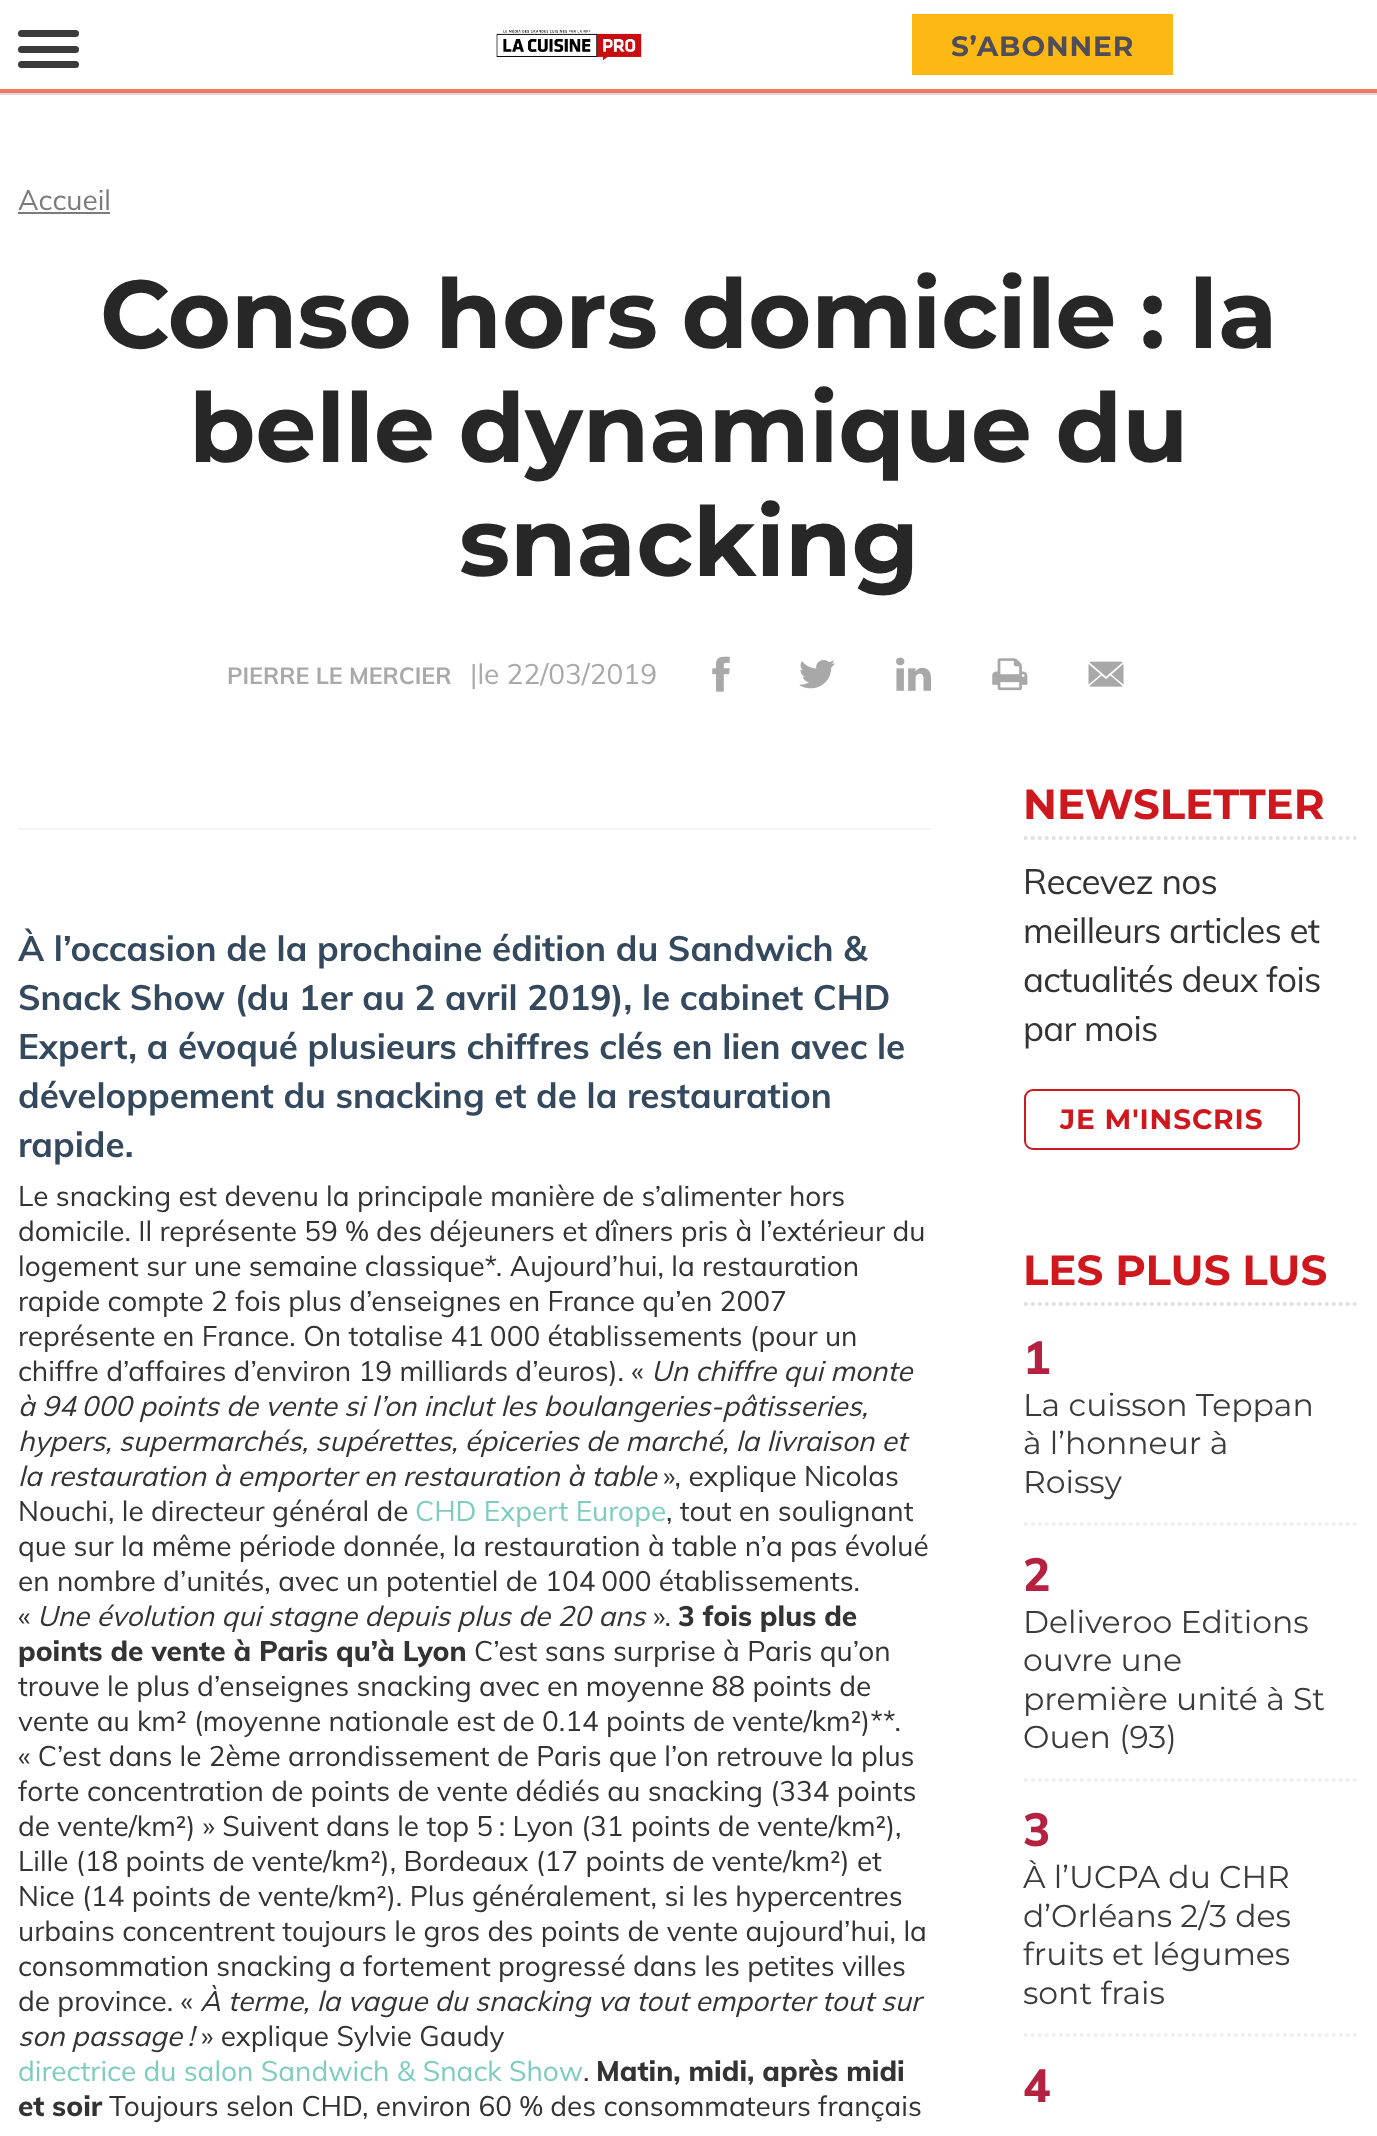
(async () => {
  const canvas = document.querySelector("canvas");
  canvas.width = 1377;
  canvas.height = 2136;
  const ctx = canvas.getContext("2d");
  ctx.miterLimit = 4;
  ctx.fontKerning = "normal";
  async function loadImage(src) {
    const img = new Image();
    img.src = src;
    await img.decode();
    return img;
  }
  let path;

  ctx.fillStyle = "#ffffff";
  ctx.fillRect(0, 0, 1377, 2136);
  ctx.fillStyle = "#dadada";
  ctx.fillRect(0, 93, 1377, 2);
  ctx.fillStyle = "#f37862";
  ctx.fillRect(0, 89, 1377, 4);
  ctx.fillStyle = "#3b3b3b";
  ctx.beginPath();
  ctx.roundRect(18, 30, 61, 7, 3.5);
  ctx.fill();
  ctx.beginPath();
  ctx.roundRect(18, 46, 61, 7, 3.5);
  ctx.fill();
  ctx.beginPath();
  ctx.roundRect(18, 61, 61, 7, 3.5);
  ctx.fill();
  ctx.drawImage(await loadImage("img/1.png"), 496, 29, 146, 32);
  ctx.fillStyle = "#fdb813";
  ctx.fillRect(912, 14, 261, 61);
  ctx.fillStyle = "#7b7b7b";
  ctx.fillRect(18, 212, 92, 2);
  ctx.drawImage(await loadImage("img/2.png"), 712, 656, 18, 36);
  ctx.drawImage(await loadImage("img/3.png"), 799, 660, 36, 29);
  ctx.drawImage(await loadImage("img/4.png"), 896, 657, 35, 34);
  ctx.drawImage(await loadImage("img/5.png"), 992, 658, 36, 33);
  ctx.drawImage(await loadImage("img/6.png"), 1088, 661, 36, 26);
  ctx.fillStyle = "#f4f4f4";
  ctx.fillRect(18, 828, 913, 2);
  path = new Path2D("M1024 838H1360");
  ctx.strokeStyle = "#e3e0e1";
  ctx.lineWidth = 3.5;
  ctx.setLineDash([3.5, 3.5]);
  ctx.stroke(path);
  ctx.beginPath();
  ctx.roundRect(1025, 1090, 274, 59, 8);
  ctx.strokeStyle = "#ce181e";
  ctx.lineWidth = 2;
  ctx.setLineDash([]);
  ctx.stroke();
  path = new Path2D("M1024 1304H1360");
  ctx.strokeStyle = "#e3e0e1";
  ctx.lineWidth = 3.5;
  ctx.setLineDash([3.5, 3.5]);
  ctx.stroke(path);
  path = new Path2D("M1024 1524H1360");
  ctx.strokeStyle = "#efefef";
  ctx.stroke(path);
  path = new Path2D("M1024 1780H1360");
  ctx.stroke(path);
  path = new Path2D("M1024 2035H1360");
  ctx.stroke(path);
  ctx.letterSpacing = "0.9px";
  ctx.font = "bold 28px Montserrat";
  ctx.fillStyle = "#4f4d5a";
  ctx.fillText("S’ABONNER", 951, 56);
  ctx.letterSpacing = "0px";
  ctx.font = "28px Muli";
  ctx.fillStyle = "#7b7b7b";
  ctx.fillText("Accueil", 18, 210);
  ctx.wordSpacing = "-3.5px";
  ctx.font = "bold 96.25px Montserrat";
  ctx.fillStyle = "#272727";
  ctx.fillText("Conso hors domicile : la", 100, 348);
  ctx.fillText("belle dynamique du", 189, 462);
  ctx.wordSpacing = "0px";
  ctx.fillText("snacking", 459, 576);
  ctx.font = "bold 23.25px Muli";
  ctx.fillStyle = "#a9a9a9";
  ctx.fillText("PIERRE LE MERCIER", 227, 684);
  ctx.font = "28px Muli";
  ctx.fillText("|le 22/03/2019", 470, 684);
  ctx.font = "bold 35px Muli";
  ctx.fillStyle = "#34495e";
  for (const [text, x, y] of [
    ["À l’occasion de la prochaine édition du Sandwich &", 18, 961],
    ["Snack Show (du 1er au 2 avril 2019), le cabinet CHD", 18, 1010],
    ["Expert, a évoqué plusieurs chiffres clés en lien avec le", 18, 1059],
    ["développement du snacking et de la restauration", 18, 1108],
    ["rapide.", 18, 1157],
  ]) {
    ctx.fillText(text, x, y);
  }
  ctx.font = "28px Muli";
  ctx.fillStyle = "#343333";
  for (const [text, x, y] of [
    ["Le snacking est devenu la principale manière de s’alimenter hors", 18, 1206],
    ["domicile. Il représente 59 % des déjeuners et dîners pris à l’extérieur du", 18, 1241],
    ["logement sur une semaine classique*. Aujourd’hui, la restauration", 18, 1276],
    ["rapide compte 2 fois plus d’enseignes en France qu’en 2007", 18, 1311],
    ["représente en France. On totalise 41 000 établissements (pour un", 18, 1346],
    ["chiffre d’affaires d’environ 19 milliards d’euros). «", 18, 1381],
  ]) {
    ctx.fillText(text, x, y);
  }
  ctx.font = "italic 28px Muli";
  for (const [text, x, y] of [
    ["Un chiffre qui monte", 651, 1381],
    ["à 94 000 points de vente si l’on inclut les boulangeries-pâtisseries,", 18, 1416],
    ["hypers, supermarchés, supérettes, épiceries de marché, la livraison et", 18, 1451],
    ["la restauration à emporter en restauration à table", 18, 1486],
  ]) {
    ctx.fillText(text, x, y);
  }
  ctx.font = "28px Muli";
  ctx.fillText("», explique Nicolas", 663, 1486);
  ctx.fillText("Nouchi, le directeur général de", 18, 1521);
  ctx.fillStyle = "#7eccc0";
  ctx.fillText("CHD Expert Europe", 415, 1521);
  ctx.fillStyle = "#343333";
  for (const [text, x, y] of [
    [", tout en soulignant", 666, 1521],
    ["que sur la même période donnée, la restauration à table n’a pas évolué", 18, 1556],
    ["en nombre d’unités, avec un potentiel de 104 000 établissements.", 18, 1591],
    ["«", 18, 1626],
  ]) {
    ctx.fillText(text, x, y);
  }
  ctx.font = "italic 28px Muli";
  ctx.fillText("Une évolution qui stagne depuis plus de 20 ans", 37, 1626);
  ctx.font = "28px Muli";
  ctx.fillText("».", 653, 1626);
  ctx.font = "800 28px Muli";
  ctx.fillText("3 fois plus de", 678, 1626);
  ctx.fillText("points de vente à Paris qu’à Lyon", 18, 1661);
  ctx.font = "28px Muli";
  for (const [text, x, y] of [
    ["C’est sans surprise à Paris qu’on", 474, 1661],
    ["trouve le plus d’enseignes snacking avec en moyenne 88 points de", 18, 1696],
    ["vente au km² (moyenne nationale est de 0.14 points de vente/km²)**.", 18, 1731],
    ["« C’est dans le 2ème arrondissement de Paris que l’on retrouve la plus", 18, 1766],
    ["forte concentration de points de vente dédiés au snacking (334 points", 18, 1801],
    ["de vente/km²) » Suivent dans le top 5 : Lyon (31 points de vente/km²),", 18, 1836],
    ["Lille (18 points de vente/km²), Bordeaux (17 points de vente/km²) et", 18, 1871],
    ["Nice (14 points de vente/km²). Plus généralement, si les hypercentres", 18, 1906],
    ["urbains concentrent toujours le gros des points de vente aujourd’hui, la", 18, 1941],
    ["consommation snacking a fortement progressé dans les petites villes", 18, 1976],
    ["de province. «", 18, 2011],
  ]) {
    ctx.fillText(text, x, y);
  }
  ctx.font = "italic 28px Muli";
  ctx.fillText("À terme, la vague du snacking va tout emporter tout sur", 200, 2011);
  ctx.fillText("son passage !", 18, 2046);
  ctx.font = "28px Muli";
  ctx.fillText("» explique Sylvie Gaudy", 201, 2046);
  ctx.fillStyle = "#7eccc0";
  ctx.fillText("directrice du salon Sandwich & Snack Show", 18, 2081);
  ctx.fillStyle = "#343333";
  ctx.fillText(".", 583, 2081);
  ctx.font = "800 28px Muli";
  ctx.fillText("Matin, midi, après midi", 596, 2081);
  ctx.fillText("et soir", 18, 2116);
  ctx.font = "28px Muli";
  ctx.fillText("Toujours selon CHD, environ 60 % des consommateurs français", 109, 2116);
  ctx.font = "bold 42px Montserrat";
  ctx.fillStyle = "#ce181e";
  ctx.fillText("NEWSLETTER", 1023, 819);
  ctx.letterSpacing = "-0.7px";
  ctx.font = "35px Muli";
  ctx.fillStyle = "#343333";
  for (const [text, x, y] of [
    ["Recevez nos", 1023, 894],
    ["meilleurs articles et", 1023, 943],
    ["actualités deux fois", 1023, 992],
    ["par mois", 1023, 1041],
  ]) {
    ctx.fillText(text, x, y);
  }
  ctx.letterSpacing = "0.9px";
  ctx.font = "bold 28px Montserrat";
  ctx.fillStyle = "#ce181e";
  ctx.fillText("JE M'INSCRIS", 1060, 1129);
  ctx.letterSpacing = "0px";
  ctx.font = "bold 42px Montserrat";
  ctx.fillText("LES PLUS LUS", 1023, 1285);
  ctx.font = "800 46px Muli";
  ctx.fillStyle = "#b52241";
  ctx.fillText("1", 1023, 1374);
  ctx.font = "31.5px Montserrat";
  ctx.fillStyle = "#3b3b3b";
  for (const [text, x, y] of [
    ["La cuisson Teppan", 1023, 1416],
    ["à l’honneur à", 1023, 1454],
    ["Roissy", 1023, 1493],
  ]) {
    ctx.fillText(text, x, y);
  }
  ctx.font = "800 46px Muli";
  ctx.fillStyle = "#b52241";
  ctx.fillText("2", 1023, 1591);
  ctx.font = "31.5px Montserrat";
  ctx.fillStyle = "#3b3b3b";
  for (const [text, x, y] of [
    ["Deliveroo Editions", 1023, 1633],
    ["ouvre une", 1023, 1671],
    ["première unité à St", 1023, 1710],
    ["Ouen (93)", 1023, 1748],
  ]) {
    ctx.fillText(text, x, y);
  }
  ctx.font = "800 46px Muli";
  ctx.fillStyle = "#b52241";
  ctx.fillText("3", 1023, 1846);
  ctx.font = "31.5px Montserrat";
  ctx.fillStyle = "#3b3b3b";
  for (const [text, x, y] of [
    ["À l’UCPA du CHR", 1023, 1888],
    ["d’Orléans 2/3 des", 1023, 1927],
    ["fruits et légumes", 1023, 1965],
    ["sont frais", 1023, 2004],
  ]) {
    ctx.fillText(text, x, y);
  }
  ctx.font = "800 46px Muli";
  ctx.fillStyle = "#b52241";
  ctx.fillText("4", 1023, 2102);
})();
